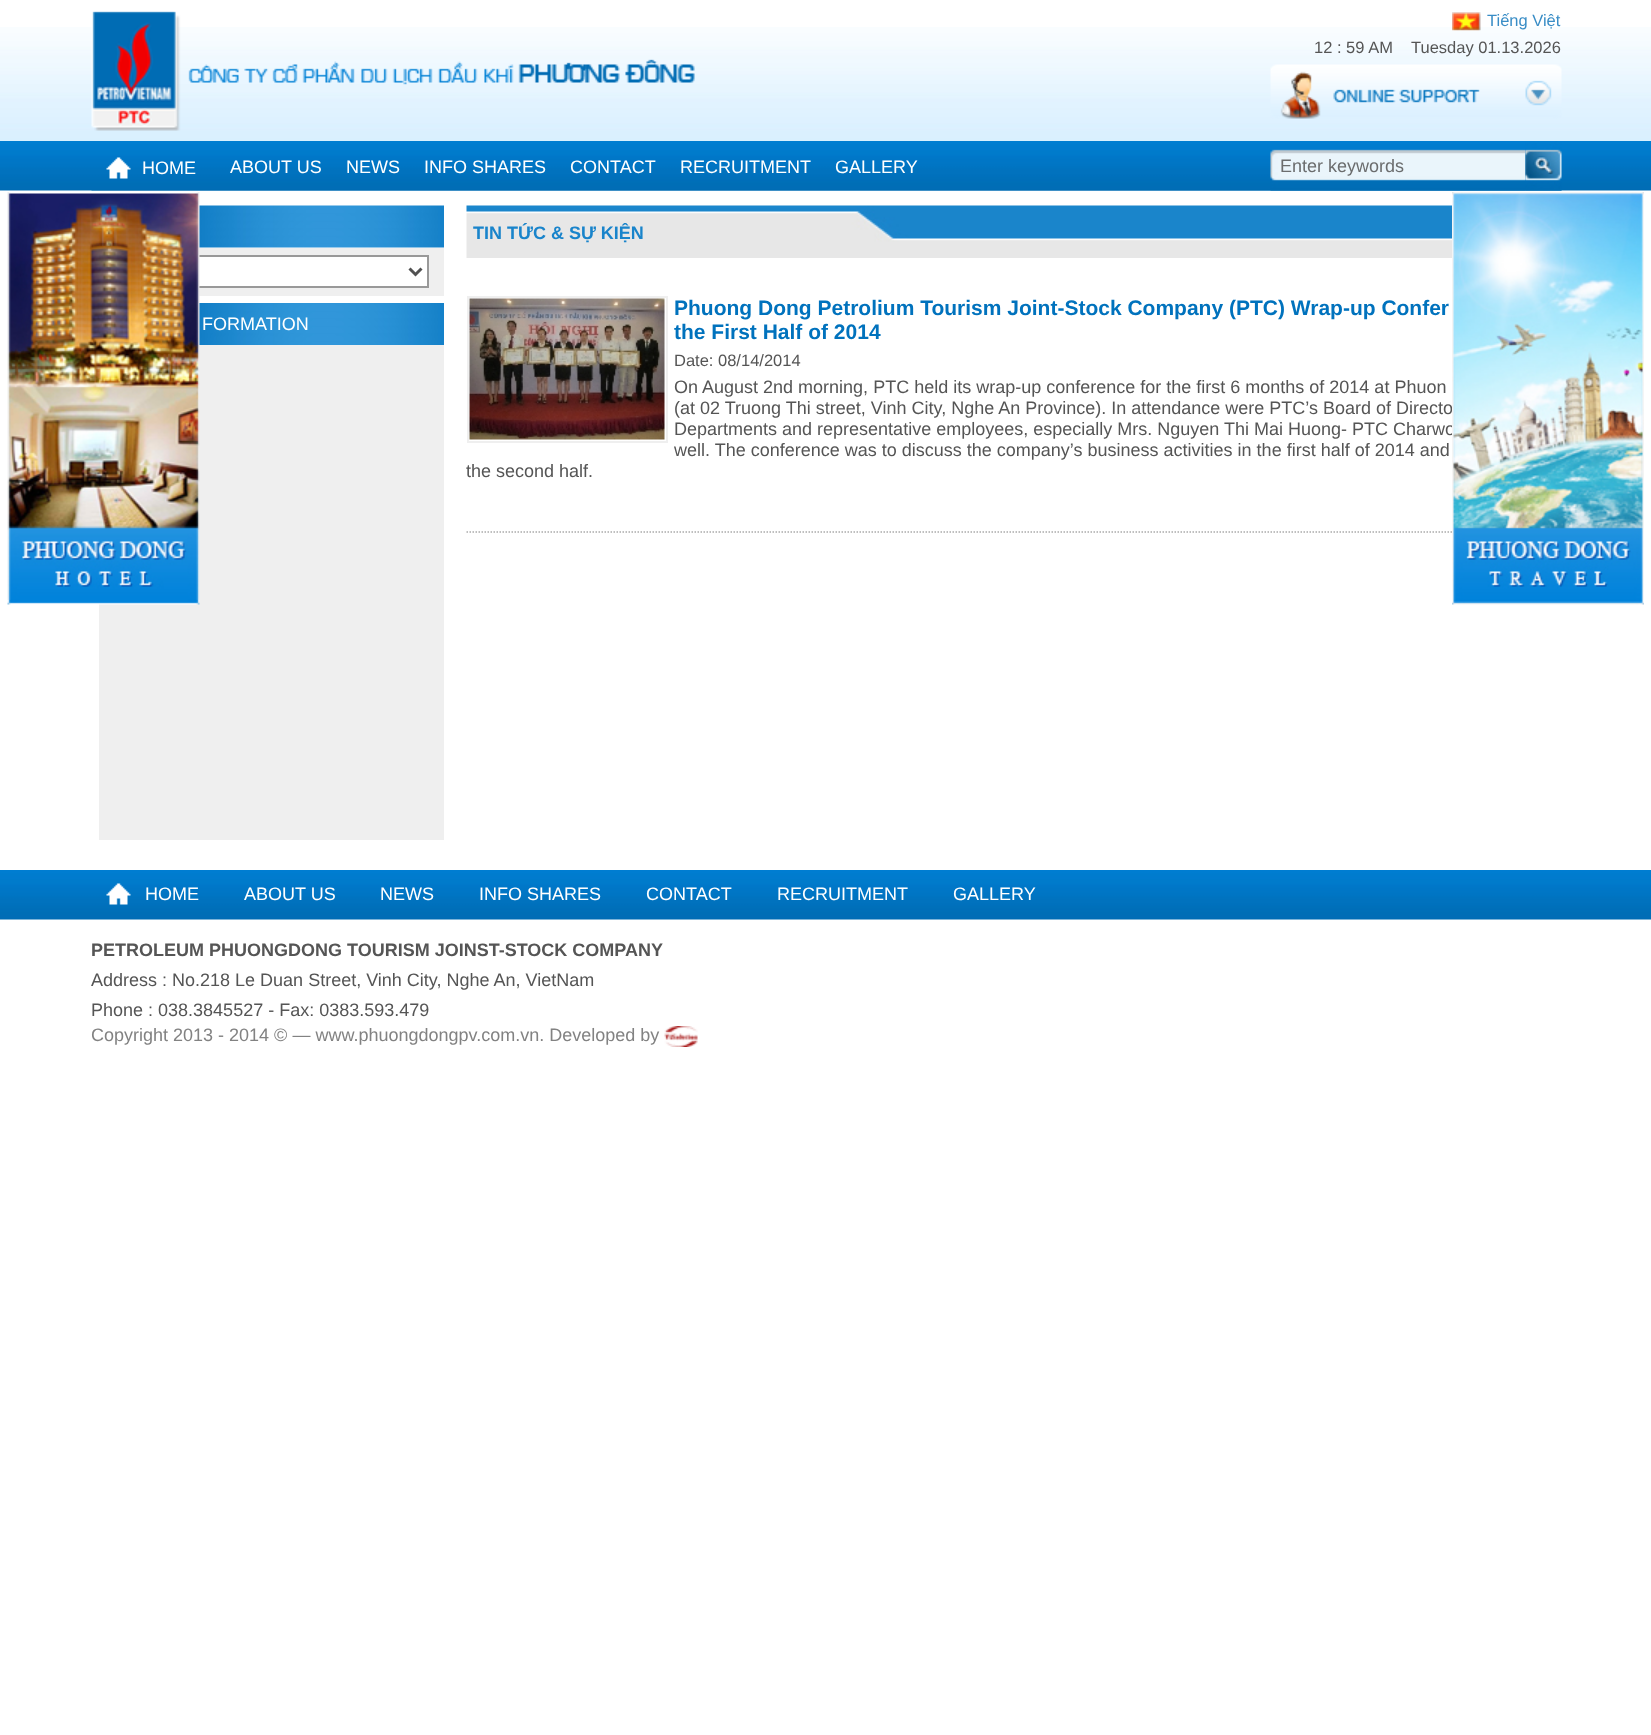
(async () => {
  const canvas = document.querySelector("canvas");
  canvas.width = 1651;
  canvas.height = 1735;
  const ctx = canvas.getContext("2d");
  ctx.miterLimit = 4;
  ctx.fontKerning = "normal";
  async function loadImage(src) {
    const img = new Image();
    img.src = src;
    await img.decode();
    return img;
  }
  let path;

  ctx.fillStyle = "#ffffff";
  ctx.fillRect(0, 0, 1651, 1735);
  ctx.drawImage(await loadImage("img/1.png"), 0, 27, 1651, 114);
  ctx.drawImage(await loadImage("img/2.png"), 91, 11, 604, 120);
  ctx.drawImage(await loadImage("img/3.png"), 1452, 12, 29, 19);
  ctx.drawImage(await loadImage("img/4.png"), 1270, 64, 292, 55);
  ctx.drawImage(await loadImage("img/5.png"), 0, 141, 1651, 50);
  ctx.drawImage(await loadImage("img/6.png"), 91, 190, 1471, 1);
  ctx.drawImage(await loadImage("img/7.png"), 106, 157, 25, 22);
  ctx.drawImage(await loadImage("img/8.png"), 1270, 149, 8, 42);
  ctx.drawImage(await loadImage("img/9.png"), 1278, 149, 248, 42);
  ctx.drawImage(await loadImage("img/10.png"), 1525, 141, 37, 50);
  ctx.drawImage(await loadImage("img/13.png"), 199, 205, 245, 43);
  ctx.fillStyle = "#efefef";
  ctx.fillRect(199, 248, 245, 48);
  ctx.fillStyle = "#ffffff";
  ctx.fillRect(199, 257, 228, 29);
  ctx.strokeStyle = "#999999";
  ctx.lineWidth = 2;
  ctx.strokeRect(108, 256, 320, 31);
  ctx.drawImage(await loadImage("img/14.png"), 199, 303, 245, 42);
  ctx.fillStyle = "#efefef";
  ctx.fillRect(99, 345, 345, 495);
  ctx.drawImage(await loadImage("img/11.png"), 7, 192, 193, 413);
  path = new Path2D("M409.5 268.5L415.5 274.5L421.5 268.5");
  ctx.strokeStyle = "#515151";
  ctx.lineWidth = 3;
  ctx.stroke(path);
  ctx.drawImage(await loadImage("img/15.png"), 466, 205, 986, 53);
  path = new Path2D("M466.5 532H1554");
  ctx.strokeStyle = "#ababab";
  ctx.lineWidth = 1.5;
  ctx.setLineDash([1.5, 1.5]);
  ctx.stroke(path);
  ctx.strokeStyle = "#efefef";
  ctx.lineWidth = 2;
  ctx.setLineDash([]);
  ctx.strokeRect(468, 297, 199, 145);
  ctx.drawImage(await loadImage("img/16.png"), 469, 298, 196, 142);
  ctx.drawImage(await loadImage("img/17.png"), 0, 870, 1651, 50);
  ctx.drawImage(await loadImage("img/18.png"), 106, 883, 25, 22);
  ctx.drawImage(await loadImage("img/19.png"), 664, 1026, 34, 21);
  ctx.font = "16.5px Liberation Sans";
  ctx.fillStyle = "#398dc6";
  ctx.fillText("Tiếng Việt", 1487, 26);
  ctx.fillStyle = "#555555";
  ctx.fillText("12 : 59 AM", 1314, 53);
  ctx.fillText("Tuesday 01.13.2026", 1411, 53);
  ctx.font = "18px Liberation Sans";
  ctx.fillStyle = "#ffffff";
  for (const [text, x, y] of [
    ["HOME", 142, 174],
    ["ABOUT US", 230, 173],
    ["NEWS", 346, 173],
    ["INFO SHARES", 424, 173],
    ["CONTACT", 570, 173],
    ["RECRUITMENT", 680, 173],
    ["GALLERY", 835, 173],
  ]) {
    ctx.fillText(text, x, y);
  }
  ctx.fillStyle = "#6b6d6e";
  ctx.fillText("Enter keywords", 1280, 172);
  ctx.fillStyle = "#ffffff";
  ctx.fillText("FORMATION", 202, 330);
  ctx.font = "bold 18px Liberation Sans";
  ctx.fillStyle = "#1984cb";
  ctx.fillText("TIN TỨC & SỰ KIỆN", 473, 239);
  ctx.font = "bold 21px Liberation Sans";
  ctx.fillStyle = "#0072bd";
  ctx.fillText("Phuong Dong Petrolium Tourism Joint-Stock Company (PTC) Wrap-up Confer", 674, 315);
  ctx.fillText("the First Half of 2014", 674, 339);
  ctx.font = "16.5px Liberation Sans";
  ctx.fillStyle = "#555555";
  ctx.fillText("Date: 08/14/2014", 674, 366);
  ctx.font = "18px Liberation Sans";
  for (const [text, x, y] of [
    ["On August 2nd morning, PTC held its wrap-up conference for the first 6 months of 2014 at Phuon", 674, 393],
    ["(at 02 Truong Thi street, Vinh City, Nghe An Province). In attendance were PTC’s Board of Directo", 674, 414],
    ["Departments and representative employees, especially Mrs. Nguyen Thi Mai Huong- PTC Charwo", 674, 435],
  ]) {
    ctx.fillText(text, x, y);
  }
  ctx.drawImage(await loadImage("img/12.png"), 1452, 192, 192, 413);
  ctx.fillText("well. The conference was to discuss the company’s business activities in the first half of 2014 and", 674, 456);
  ctx.fillText("the second half.", 466, 477);
  ctx.fillStyle = "#ffffff";
  for (const [text, x, y] of [
    ["HOME", 145, 900],
    ["ABOUT US", 244, 900],
    ["NEWS", 380, 900],
    ["INFO SHARES", 479, 900],
    ["CONTACT", 646, 900],
    ["RECRUITMENT", 777, 900],
    ["GALLERY", 953, 900],
  ]) {
    ctx.fillText(text, x, y);
  }
  ctx.font = "bold 18px Liberation Sans";
  ctx.fillStyle = "#555555";
  ctx.fillText("PETROLEUM PHUONGDONG TOURISM JOINST-STOCK COMPANY", 91, 956);
  ctx.font = "18px Liberation Sans";
  ctx.fillText("Address : No.218 Le Duan Street, Vinh City, Nghe An, VietNam", 91, 986);
  ctx.fillText("Phone : 038.3845527 - Fax: 0383.593.479", 91, 1016);
  ctx.fillStyle = "#828282";
  ctx.fillText("Copyright 2013 - 2014 © — www.phuongdongpv.com.vn. Developed by", 91, 1041);
})();
